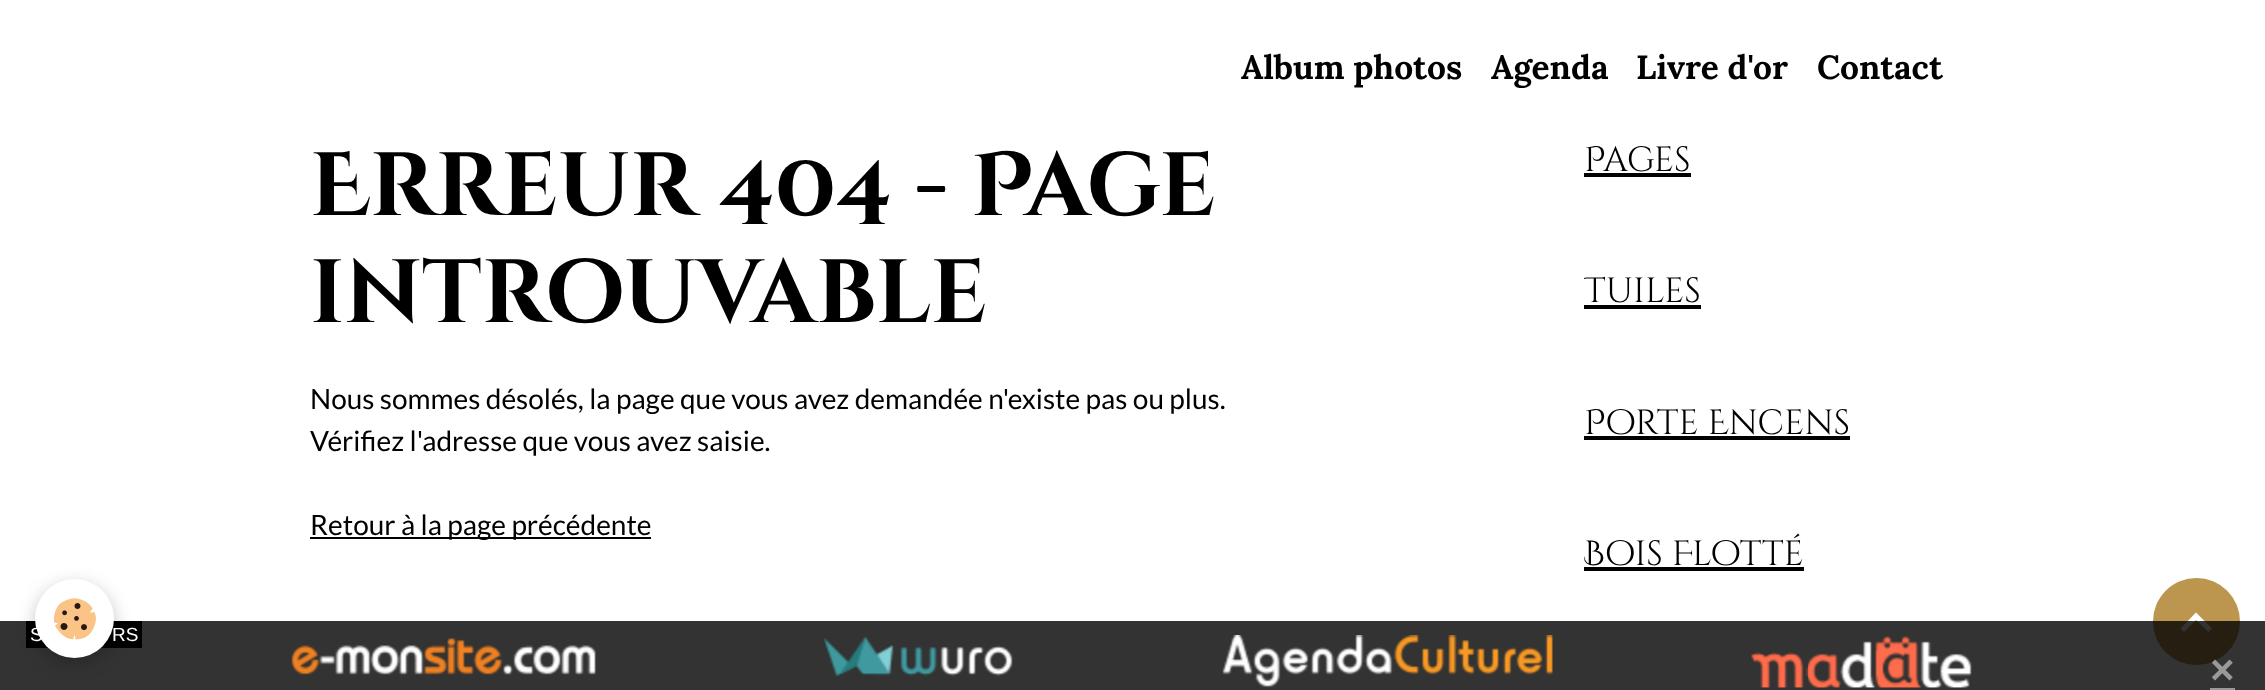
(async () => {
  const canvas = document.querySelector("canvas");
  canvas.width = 2265;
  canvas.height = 690;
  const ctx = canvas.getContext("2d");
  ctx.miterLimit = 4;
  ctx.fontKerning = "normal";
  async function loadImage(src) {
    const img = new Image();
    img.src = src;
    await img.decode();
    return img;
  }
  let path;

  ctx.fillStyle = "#ffffff";
  ctx.fillRect(0, 0, 2265, 690);
  for (const [x, y, w, h, color] of [
    [310, 537, 341, 2, "#000000"],
    [1584, 173, 107, 4, "#000000"],
    [1584, 305, 117, 4, "#000000"],
    [1584, 436, 266, 4, "#000000"],
    [1584, 567, 220, 4, "#000000"],
  ]) {
    ctx.fillStyle = color;
    ctx.fillRect(x, y, w, h);
  }
  ctx.fillStyle = "#bc964f";
  ctx.beginPath();
  ctx.arc(2196.5, 621.5, 43.5, 0, Math.PI * 2);
  ctx.fill();
  ctx.fillStyle = "#ffffff";
  path = new Path2D("M2196 612.5L2212 628.5L2208.5 632L2196 620L2184 632L2180.5 628.5Z");
  ctx.fill(path);
  ctx.fillStyle = "rgba(0, 0, 0, 0.8)";
  ctx.fillRect(0, 621, 2265, 69);
  ctx.fillStyle = "#000000";
  ctx.fillRect(26, 621, 116, 27);
  ctx.fillStyle = "rgba(0, 0, 0, 0.24)";
  ctx.filter = "blur(9px)";
  ctx.beginPath();
  ctx.roundRect(35, 585, 79, 78, 39);
  ctx.fill();
  ctx.filter = "none";
  ctx.fillStyle = "#ffffff";
  ctx.beginPath();
  ctx.arc(74.5, 618.5, 39.5, 0, Math.PI * 2);
  ctx.fill();
  ctx.drawImage(await loadImage("img/1.png"), 53, 598, 43, 42);
  ctx.drawImage(await loadImage("img/2.png"), 291, 638, 305, 37);
  ctx.drawImage(await loadImage("img/3.png"), 823, 636, 190, 41);
  ctx.drawImage(await loadImage("img/4.png"), 1222, 635, 331, 53);
  ctx.drawImage(await loadImage("img/5.png"), 1751, 636, 221, 52);
  ctx.fillStyle = "#999999";
  ctx.fillRect(2210, 688, 25, 2);
  ctx.font = "bold 33.5px Lora";
  ctx.fillStyle = "#000000";
  for (const [text, x, y] of [
    ["Album photos", 1241, 79],
    ["Agenda", 1491, 79],
    ["Livre d'or", 1636, 79],
    ["Contact", 1817, 79],
  ]) {
    ctx.fillText(text, x, y);
  }
  ctx.font = "bold 89.6px Cinzel Decorative";
  ctx.fillText("Erreur 404 - Page", 310, 215);
  ctx.fillText("introuvable", 310, 322);
  ctx.font = "28px Lato";
  for (const [text, x, y] of [
    ["Nous sommes désolés, la page que vous avez demandée n'existe pas ou plus.", 310, 409],
    ["Vérifiez l'adresse que vous avez saisie.", 310, 451],
    ["Retour à la page précédente", 310, 535],
  ]) {
    ctx.fillText(text, x, y);
  }
  ctx.font = "35px Cinzel Decorative";
  ctx.fillText("Pages", 1584, 171);
  ctx.save();
  ctx.beginPath();
  ctx.rect(1584, 266, 373, 79);
  ctx.clip();
  ctx.fillText("Tuiles", 1584, 302);
  ctx.restore();
  ctx.fillText("Porte Encens", 1584, 434);
  ctx.fillText("Bois Flotté", 1584, 565);
  ctx.font = "19px Liberation Sans";
  ctx.fillStyle = "#ffffff";
  ctx.fillText("S", 30, 641);
  ctx.fillText("RS", 112, 641);
  ctx.font = "bold 42px Liberation Sans";
  ctx.fillStyle = "#999999";
  ctx.fillText("×", 2210, 684);
})();
